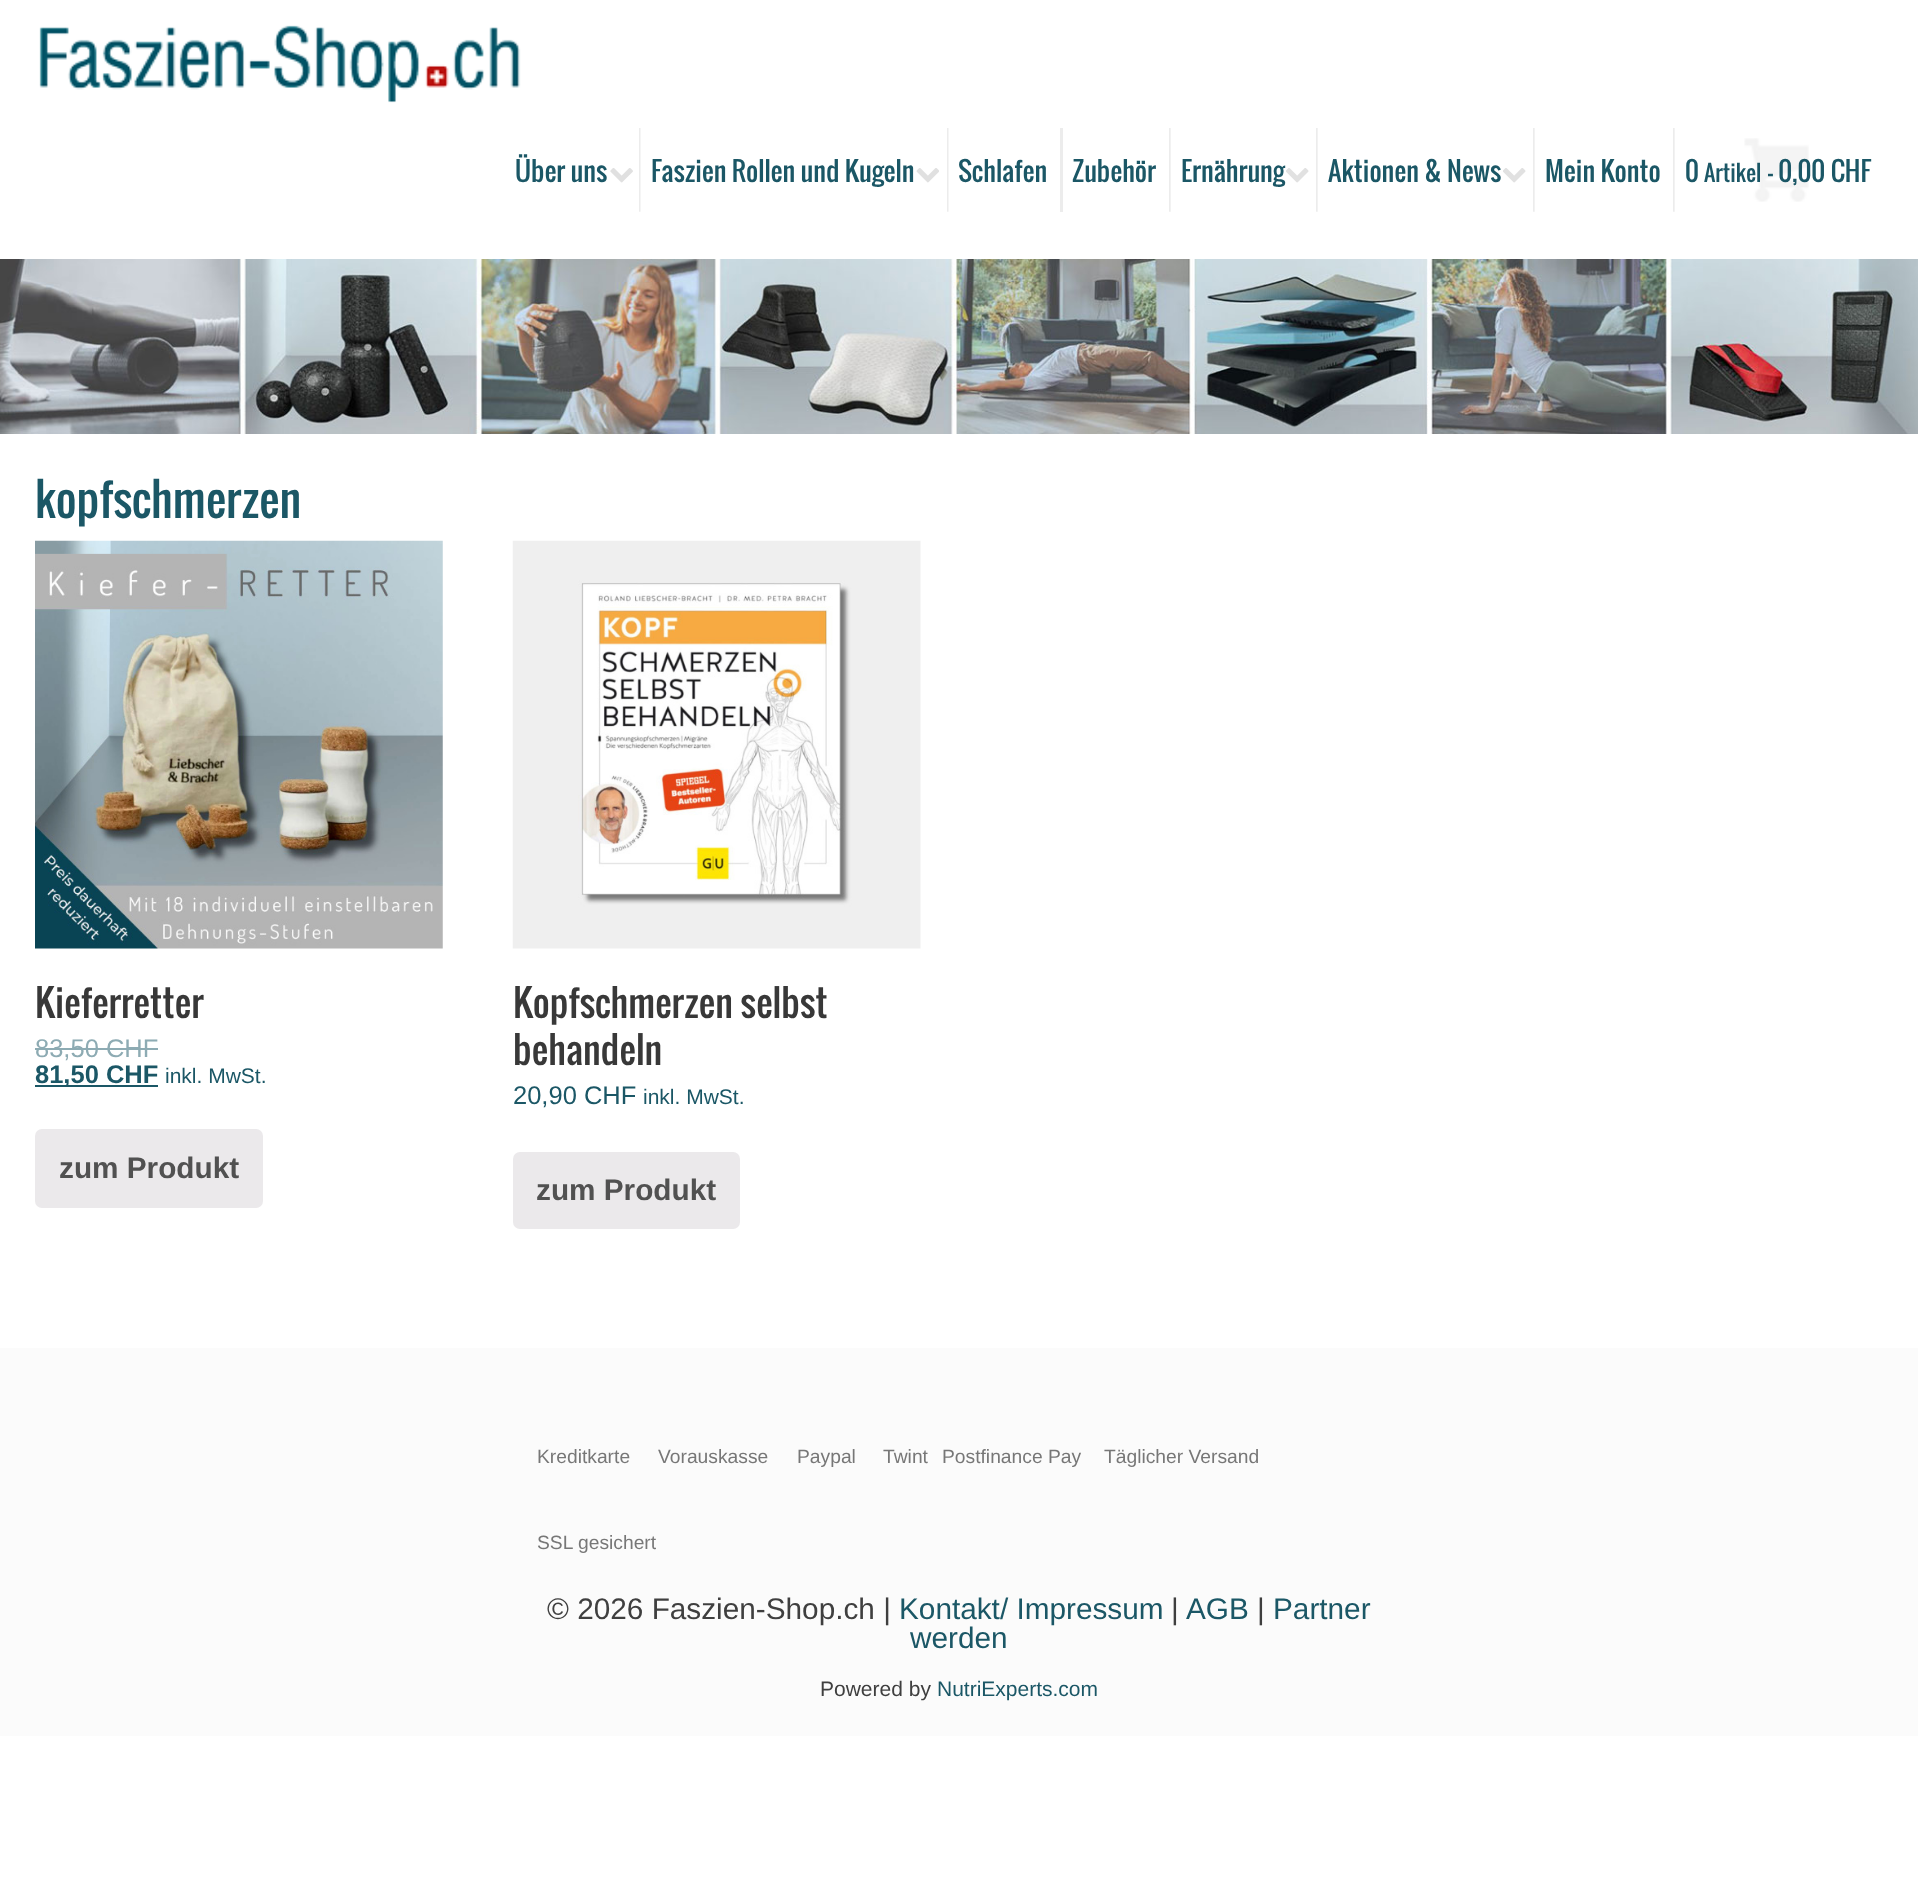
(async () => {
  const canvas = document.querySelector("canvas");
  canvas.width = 1918;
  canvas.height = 1879;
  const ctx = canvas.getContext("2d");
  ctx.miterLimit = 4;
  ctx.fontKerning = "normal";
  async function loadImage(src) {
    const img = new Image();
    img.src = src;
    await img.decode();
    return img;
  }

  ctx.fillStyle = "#ffffff";
  ctx.fillRect(0, 0, 1918, 1879);
  ctx.drawImage(await loadImage("img/1.png"), 39, 25, 482, 78);
  ctx.drawImage(await loadImage("img/2.png"), 610, 168, 23, 15);
  ctx.drawImage(await loadImage("img/3.png"), 639, 128, 2, 84);
  ctx.drawImage(await loadImage("img/4.png"), 916, 168, 23, 15);
  ctx.drawImage(await loadImage("img/3.png"), 947, 128, 2, 84);
  ctx.fillStyle = "#ececec";
  ctx.fillRect(1060, 128, 3, 84);
  ctx.drawImage(await loadImage("img/5.png"), 1169, 128, 2, 84);
  ctx.drawImage(await loadImage("img/6.png"), 1286, 168, 23, 15);
  ctx.drawImage(await loadImage("img/5.png"), 1316, 128, 2, 84);
  ctx.drawImage(await loadImage("img/6.png"), 1503, 168, 23, 15);
  ctx.drawImage(await loadImage("img/5.png"), 1533, 128, 2, 84);
  ctx.drawImage(await loadImage("img/5.png"), 1673, 128, 2, 84);
  ctx.drawImage(await loadImage("img/7.png"), 1744, 138, 65, 64);
  ctx.drawImage(await loadImage("img/8.png"), 0, 259, 1918, 175);
  ctx.drawImage(await loadImage("img/9.png"), 35, 540, 408, 409);
  ctx.fillStyle = "#8dabb3";
  ctx.fillRect(35, 1048, 123, 2);
  ctx.fillStyle = "#1b5766";
  ctx.fillRect(35, 1085, 123, 2);
  ctx.fillStyle = "#ebe9eb";
  ctx.beginPath();
  ctx.roundRect(35, 1129, 228, 79, 7);
  ctx.fill();
  ctx.drawImage(await loadImage("img/10.png"), 512, 540, 409, 409);
  ctx.beginPath();
  ctx.roundRect(513, 1152, 227, 77, 7);
  ctx.fill();
  ctx.fillStyle = "#fbfbfb";
  ctx.fillRect(0, 1348, 1918, 388);
  ctx.font = "26.25px Oswald";
  ctx.fillStyle = "#1b5766";
  for (const [text, x, y] of [
    ["Über uns", 515, 182],
    ["Faszien Rollen und Kugeln", 651, 182],
    ["Schlafen", 958, 182],
    ["Zubehör", 1072, 182],
    ["Ernährung", 1181, 182],
    ["Aktionen & News", 1328, 182],
    ["Mein Konto", 1545, 182],
    ["0", 1685, 182],
  ]) {
    ctx.fillText(text, x, y);
  }
  ctx.font = "22px Oswald";
  ctx.fillText("Artikel", 1704, 182);
  ctx.font = "26.25px Oswald";
  ctx.fillText("- 0,00 CHF", 1768, 182);
  ctx.font = "44.75px Oswald";
  ctx.fillText("kopfschmerzen", 35, 518);
  ctx.font = "36.5px Oswald";
  ctx.fillStyle = "#383838";
  ctx.fillText("Kieferretter", 35, 1018);
  ctx.font = "25.5px Liberation Sans";
  ctx.fillStyle = "#8dabb3";
  ctx.fillText("83,50 CHF", 35, 1057);
  ctx.font = "bold 25.5px Liberation Sans";
  ctx.fillStyle = "#1b5766";
  ctx.fillText("81,50 CHF", 35, 1083);
  ctx.font = "21px Liberation Sans";
  ctx.fillText("inkl. MwSt.", 165, 1083);
  ctx.font = "bold 29.75px Liberation Sans";
  ctx.fillStyle = "#515151";
  ctx.fillText("zum Produkt", 59, 1178);
  ctx.font = "36.5px Oswald";
  ctx.fillStyle = "#383838";
  ctx.fillText("Kopfschmerzen selbst", 513, 1018);
  ctx.fillText("behandeln", 513, 1065);
  ctx.font = "25.5px Liberation Sans";
  ctx.fillStyle = "#1b5766";
  ctx.fillText("20,90 CHF", 513, 1104);
  ctx.font = "21px Liberation Sans";
  ctx.fillText("inkl. MwSt.", 643, 1104);
  ctx.font = "bold 29.75px Liberation Sans";
  ctx.fillStyle = "#515151";
  ctx.fillText("zum Produkt", 536, 1200);
  ctx.font = "19.25px Liberation Sans";
  ctx.fillStyle = "#777777";
  for (const [text, x, y] of [
    ["Kreditkarte", 537, 1463],
    ["Vorauskasse", 658, 1463],
    ["Paypal", 797, 1463],
    ["Twint", 883, 1463],
    ["Postfinance Pay", 942, 1463],
    ["Täglicher Versand", 1104, 1463],
    ["SSL gesichert", 537, 1549],
  ]) {
    ctx.fillText(text, x, y);
  }
  ctx.font = "29.75px Liberation Sans";
  ctx.fillStyle = "#3f3f3f";
  ctx.fillText("© 2026 Faszien-Shop.ch |", 547, 1619);
  ctx.fillStyle = "#1b5766";
  ctx.fillText("Kontakt/ Impressum", 899, 1619);
  ctx.fillStyle = "#3f3f3f";
  ctx.fillText("|", 1171, 1619);
  ctx.fillStyle = "#1b5766";
  ctx.fillText("AGB", 1186, 1619);
  ctx.fillStyle = "#3f3f3f";
  ctx.fillText("|", 1257, 1619);
  ctx.fillStyle = "#1b5766";
  ctx.fillText("Partner", 1273, 1619);
  ctx.fillText("werden", 910, 1648);
  ctx.font = "21px Liberation Sans";
  ctx.fillStyle = "#3f3f3f";
  ctx.fillText("Powered by", 820, 1696);
  ctx.fillStyle = "#1b5766";
  ctx.fillText("NutriExperts.com", 937, 1696);
})();
